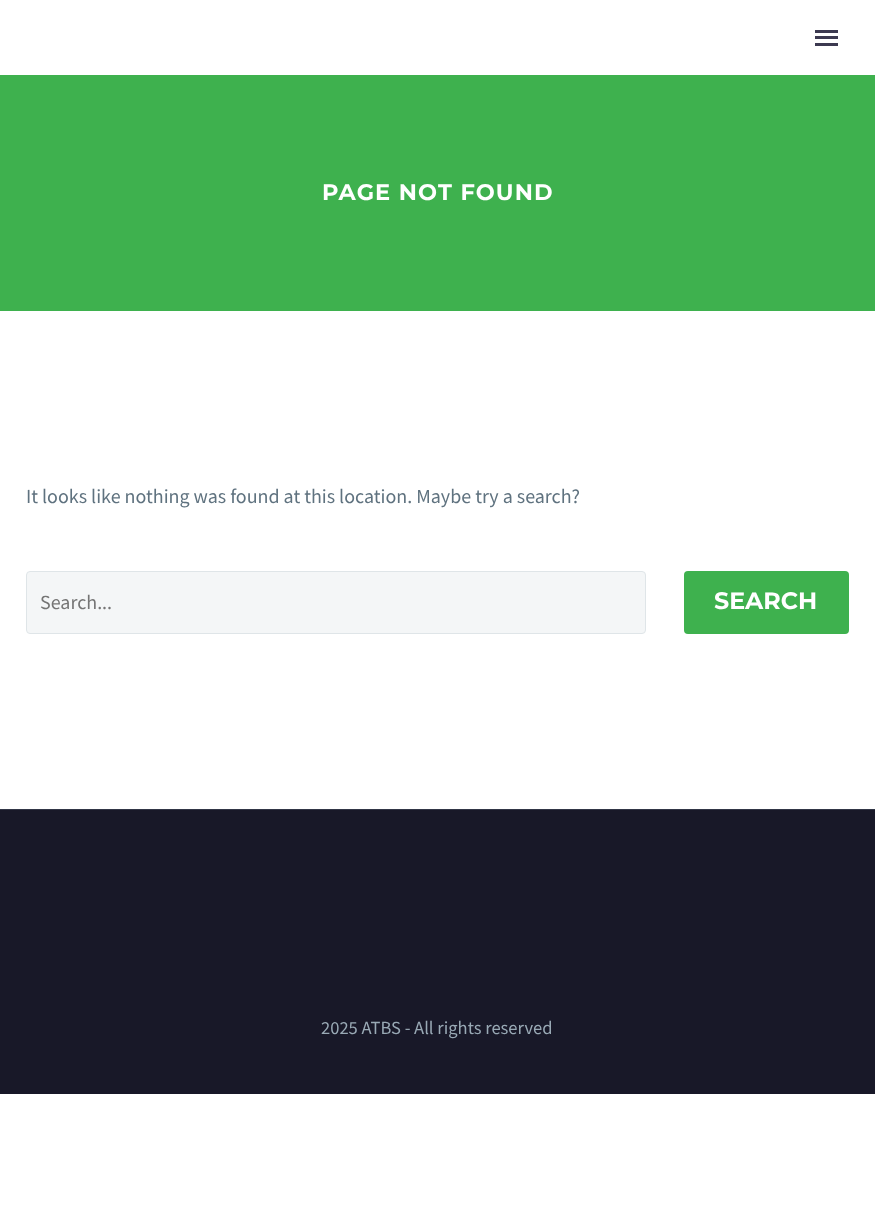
(async () => {
  const canvas = document.querySelector("canvas");
  canvas.width = 875;
  canvas.height = 1216;
  const ctx = canvas.getContext("2d");
  ctx.miterLimit = 4;
  ctx.fontKerning = "normal";

  ctx.fillStyle = "#ffffff";
  ctx.fillRect(0, 0, 875, 1216);
  for (const [x, y, w, h, color] of [
    [815, 30, 23, 3, "#3c3950"],
    [815, 36, 23, 3, "#3c3950"],
    [815, 43, 23, 3, "#3c3950"],
    [0, 75, 875, 236, "#3eb14e"],
  ]) {
    ctx.fillStyle = color;
    ctx.fillRect(x, y, w, h);
  }
  ctx.fillStyle = "#f4f6f7";
  ctx.beginPath();
  ctx.roundRect(26.5, 571.5, 619, 62, 3.5);
  ctx.fill();
  ctx.strokeStyle = "#dfe5e8";
  ctx.stroke();
  ctx.fillStyle = "#3eb14e";
  ctx.beginPath();
  ctx.roundRect(684, 571, 165, 63, 4);
  ctx.fill();
  ctx.fillStyle = "#181828";
  ctx.fillRect(0, 810, 875, 284);
  ctx.fillStyle = "#313646";
  ctx.fillRect(0, 809, 875, 1);
  ctx.letterSpacing = "1.1px";
  ctx.font = "bold 22.5px Montserrat";
  ctx.fillStyle = "#ffffff";
  ctx.fillText("PAGE NOT FOUND", 322, 200);
  ctx.letterSpacing = "0px";
  ctx.font = "20px Source Sans Pro";
  ctx.fillStyle = "#5f727f";
  ctx.fillText("It looks like nothing was found at this location. Maybe try a search?", 26, 503);
  ctx.fillStyle = "#757575";
  ctx.fillText("Search...", 40, 609);
  ctx.font = "bold 23.75px Montserrat";
  ctx.fillStyle = "#ffffff";
  ctx.fillText("SEARCH", 714, 609);
  ctx.font = "18.5px Source Sans Pro";
  ctx.fillStyle = "#99a9b5";
  ctx.fillText("2025 ATBS - All rights reserved", 321, 1034);
})();
